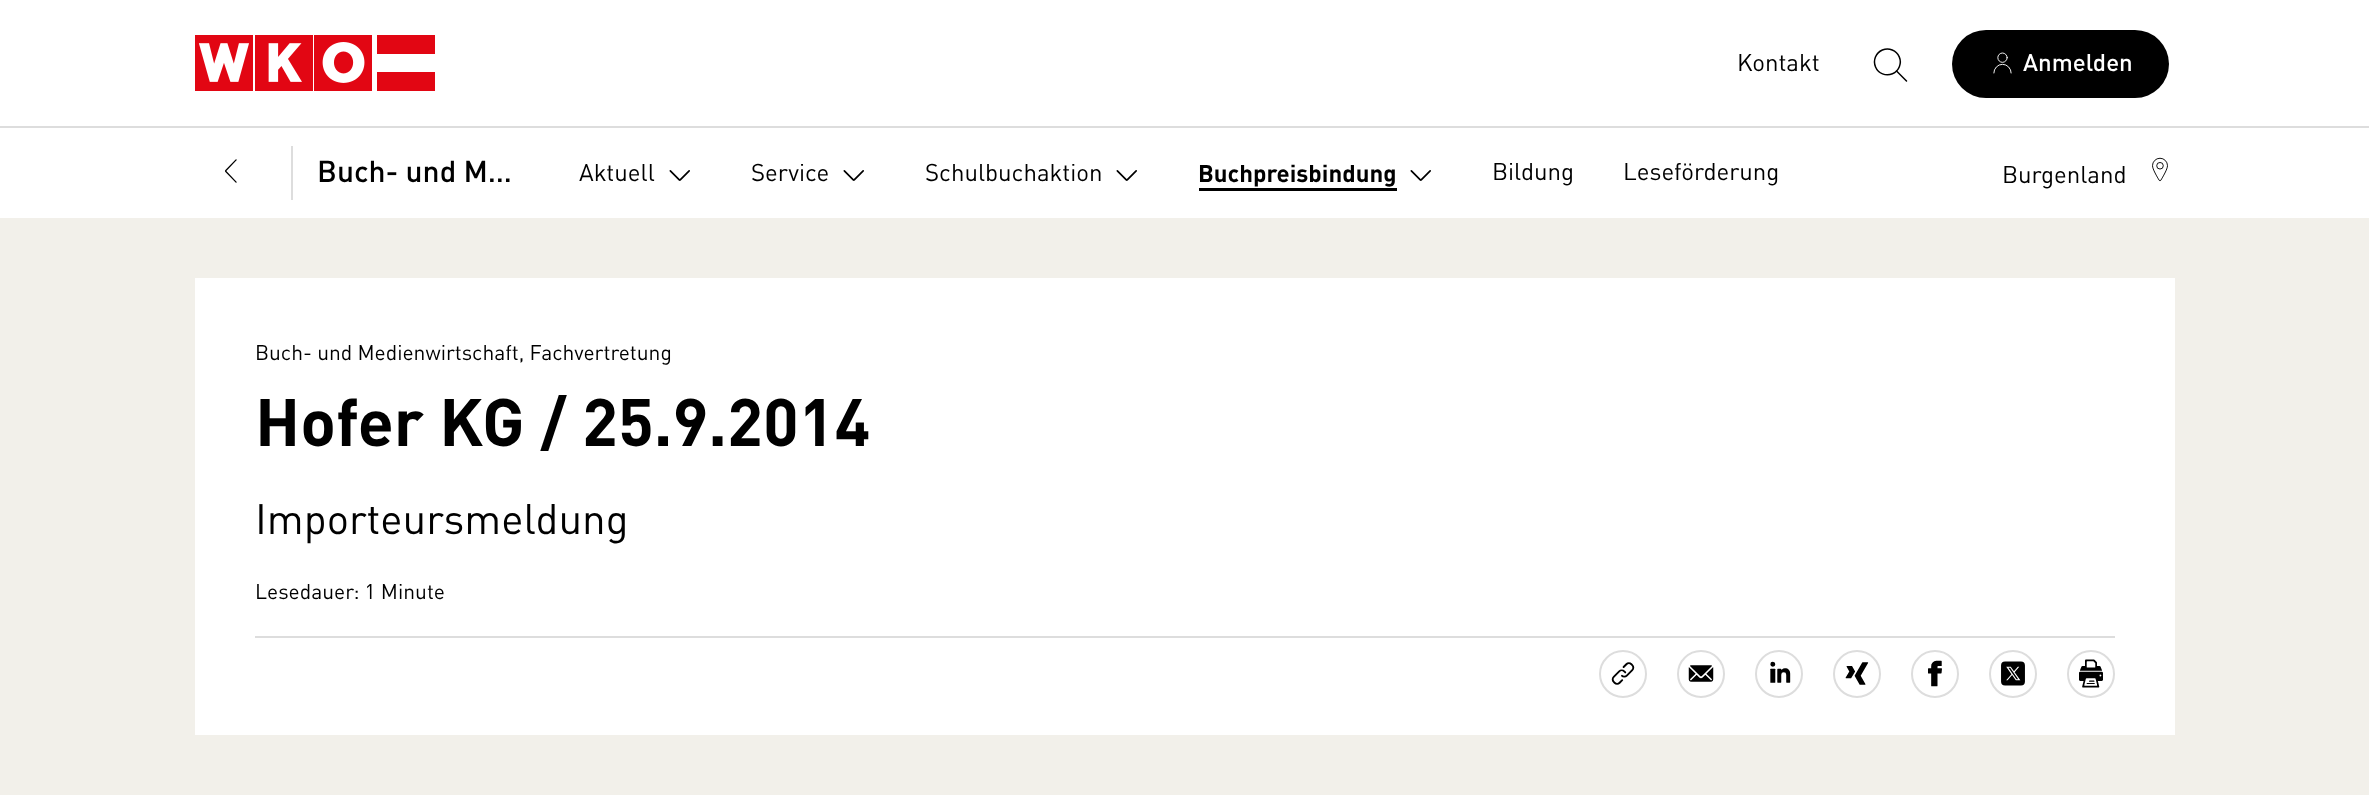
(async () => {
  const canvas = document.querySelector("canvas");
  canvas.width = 2369;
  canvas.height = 800;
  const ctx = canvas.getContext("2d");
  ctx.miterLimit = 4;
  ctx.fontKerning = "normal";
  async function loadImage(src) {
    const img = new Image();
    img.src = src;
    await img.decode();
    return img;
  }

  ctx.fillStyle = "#ffffff";
  ctx.fillRect(0, 0, 2369, 800);
  ctx.drawImage(await loadImage("img/1.png"), 195, 35, 240, 56);
  ctx.drawImage(await loadImage("img/2.png"), 1873, 48, 35, 34);
  ctx.fillStyle = "#000000";
  ctx.beginPath();
  ctx.roundRect(1952, 30, 217, 68, 34);
  ctx.fill();
  ctx.drawImage(await loadImage("img/3.png"), 1993, 52, 19, 22);
  ctx.fillStyle = "#dddddd";
  ctx.fillRect(0, 126, 2369, 2);
  ctx.drawImage(await loadImage("img/4.png"), 225, 159, 12, 24);
  ctx.fillRect(291, 146, 2, 54);
  ctx.drawImage(await loadImage("img/5.png"), 669, 170, 21, 11);
  ctx.drawImage(await loadImage("img/5.png"), 843, 170, 21, 11);
  ctx.drawImage(await loadImage("img/5.png"), 1116, 170, 21, 11);
  ctx.drawImage(await loadImage("img/5.png"), 1410, 170, 21, 11);
  ctx.fillStyle = "#000000";
  ctx.fillRect(1199, 188, 198, 3);
  ctx.drawImage(await loadImage("img/6.png"), 2152, 157, 16, 25);
  for (const [x, y, w, h, color] of [
    [0, 218, 2369, 577, "#f2f0ea"],
    [195, 278, 1980, 457, "#ffffff"],
    [255, 636, 1860, 2, "#dddddd"],
  ]) {
    ctx.fillStyle = color;
    ctx.fillRect(x, y, w, h);
  }
  ctx.beginPath();
  ctx.arc(1623, 674, 23, 0, Math.PI * 2);
  ctx.strokeStyle = "#dddddd";
  ctx.lineWidth = 2;
  ctx.stroke();
  ctx.drawImage(await loadImage("img/7.png"), 1611, 662, 24, 23);
  ctx.beginPath();
  ctx.arc(1701, 674, 23, 0, Math.PI * 2);
  ctx.stroke();
  ctx.drawImage(await loadImage("img/8.png"), 1688, 665, 26, 17);
  ctx.beginPath();
  ctx.arc(1779, 674, 23, 0, Math.PI * 2);
  ctx.stroke();
  ctx.drawImage(await loadImage("img/9.png"), 1770, 661, 21, 22);
  ctx.beginPath();
  ctx.arc(1857, 674, 23, 0, Math.PI * 2);
  ctx.stroke();
  ctx.drawImage(await loadImage("img/10.png"), 1845, 662, 24, 23);
  ctx.beginPath();
  ctx.arc(1935, 674, 23, 0, Math.PI * 2);
  ctx.stroke();
  ctx.drawImage(await loadImage("img/11.png"), 1928, 660, 14, 27);
  ctx.beginPath();
  ctx.arc(2013, 674, 23, 0, Math.PI * 2);
  ctx.stroke();
  ctx.drawImage(await loadImage("img/12.png"), 2001, 661, 24, 25);
  ctx.beginPath();
  ctx.arc(2091, 674, 23, 0, Math.PI * 2);
  ctx.stroke();
  ctx.drawImage(await loadImage("img/13.png"), 2079, 659, 24, 29);
  ctx.font = "24px DIN";
  ctx.fillStyle = "#000000";
  ctx.fillText("Kontakt", 1737, 71);
  ctx.font = "500 24px DIN";
  ctx.fillStyle = "#ffffff";
  ctx.fillText("Anmelden", 2023, 71);
  ctx.font = "500 30px DIN";
  ctx.fillStyle = "#000000";
  ctx.fillText("Buch- und M…", 317, 182);
  ctx.font = "24px DIN";
  for (const [text, x, y] of [
    ["Aktuell", 579, 181],
    ["Service", 751, 181],
    ["Schulbuchaktion", 925, 181],
  ]) {
    ctx.fillText(text, x, y);
  }
  ctx.font = "bold 24px DIN";
  ctx.fillText("Buchpreisbindung", 1198, 182);
  ctx.font = "24px DIN";
  for (const [text, x, y] of [
    ["Bildung", 1492, 180],
    ["Leseförderung", 1623, 180],
    ["Burgenland", 2002, 183],
  ]) {
    ctx.fillText(text, x, y);
  }
  ctx.font = "21px DIN";
  ctx.fillText("Buch- und Medienwirtschaft, Fachvertretung", 255, 360);
  ctx.font = "bold 66px DIN";
  ctx.fillText("Hofer KG / 25.9.2014", 255, 446);
  ctx.font = "42px DIN";
  ctx.fillText("Importeursmeldung", 255, 534);
  ctx.font = "21px DIN";
  ctx.fillText("Lesedauer: 1 Minute", 255, 599);
})();
